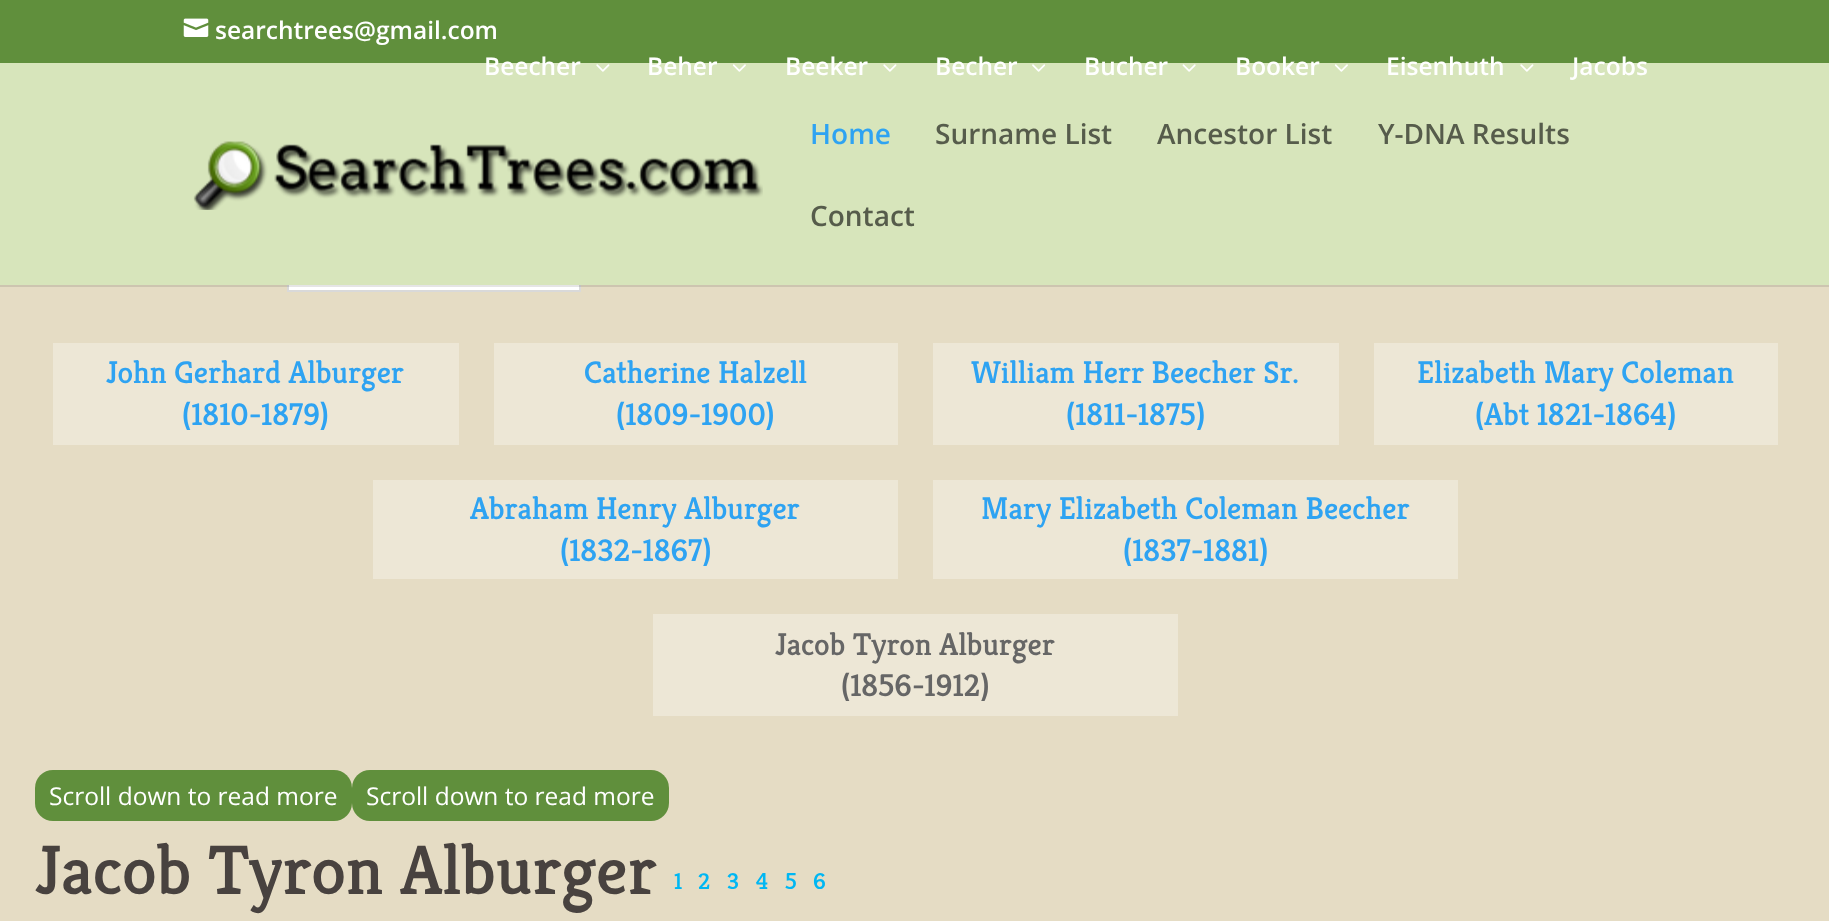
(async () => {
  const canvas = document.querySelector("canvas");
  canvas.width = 1829;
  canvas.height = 921;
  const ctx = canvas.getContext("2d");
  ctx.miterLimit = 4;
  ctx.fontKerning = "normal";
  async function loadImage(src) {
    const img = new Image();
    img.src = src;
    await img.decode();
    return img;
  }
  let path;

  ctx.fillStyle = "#e5dcc4";
  ctx.fillRect(0, 0, 1829, 921);
  ctx.fillStyle = "#608f3c";
  ctx.fillRect(0, 0, 1829, 63);
  ctx.drawImage(await loadImage("img/1.png"), 183, 18, 26, 19);
  ctx.fillStyle = "#ffffff";
  ctx.fillRect(289, 285, 290, 5);
  ctx.strokeStyle = "#d9d9d9";
  ctx.lineWidth = 2;
  ctx.strokeRect(288, 223, 292, 68);
  ctx.fillStyle = "#d7e5bb";
  ctx.fillRect(0, 63, 1829, 222);
  ctx.drawImage(await loadImage("img/2.png"), 596, 64, 14, 8);
  ctx.drawImage(await loadImage("img/3.png"), 732, 64, 14, 8);
  ctx.drawImage(await loadImage("img/2.png"), 883, 64, 14, 8);
  ctx.drawImage(await loadImage("img/4.png"), 1032, 64, 14, 8);
  ctx.drawImage(await loadImage("img/5.png"), 1182, 64, 14, 8);
  ctx.drawImage(await loadImage("img/3.png"), 1334, 64, 14, 8);
  ctx.drawImage(await loadImage("img/2.png"), 1520, 64, 14, 8);
  ctx.fillStyle = "rgba(0, 0, 0, 0.1)";
  path = new Path2D("M0 285V287H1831V65H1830V285Z");
  ctx.fill(path);
  ctx.drawImage(await loadImage("img/6.png"), 193, 141, 570, 69);
  for (const [x, y, w, h, color] of [
    [53, 343, 406, 102, "#ede7d6"],
    [494, 343, 404, 102, "#ede7d6"],
    [933, 343, 406, 102, "#ede7d6"],
    [1374, 343, 404, 102, "#ede7d6"],
    [373, 480, 525, 99, "#ede7d6"],
    [933, 480, 525, 99, "#ede7d6"],
    [653, 614, 525, 102, "#ede7d6"],
  ]) {
    ctx.fillStyle = color;
    ctx.fillRect(x, y, w, h);
  }
  ctx.fillStyle = "#608f3c";
  ctx.beginPath();
  ctx.roundRect(35, 770, 317, 51, 18);
  ctx.fill();
  ctx.beginPath();
  ctx.roundRect(352, 770, 317, 51, 18);
  ctx.fill();
  ctx.font = "600 24.5px Open Sans";
  ctx.fillStyle = "#ffffff";
  for (const [text, x, y] of [
    ["searchtrees@gmail.com", 215, 39],
    ["Beecher", 484, 75],
    ["Beher", 647, 75],
    ["Beeker", 785, 75],
    ["Becher", 935, 75],
    ["Bucher", 1084, 75],
    ["Booker", 1235, 75],
    ["Eisenhuth", 1386, 75],
    ["Jacobs", 1572, 75],
  ]) {
    ctx.fillText(text, x, y);
  }
  ctx.font = "600 28px Open Sans";
  ctx.fillStyle = "#2ea3f2";
  ctx.fillText("Home", 810, 144);
  ctx.fillStyle = "#565c4b";
  for (const [text, x, y] of [
    ["Surname List", 935, 144],
    ["Ancestor List", 1157, 144],
    ["Y-DNA Results", 1378, 144],
    ["Contact", 810, 226],
  ]) {
    ctx.fillText(text, x, y);
  }
  ctx.font = "500 31.5px Kreon";
  ctx.fillStyle = "#2ea3f2";
  for (const [text, x, y] of [
    ["John Gerhard Alburger", 106, 383],
    ["(1810-1879)", 182, 425],
    ["Catherine Halzell", 584, 383],
    ["(1809-1900)", 616, 425],
    ["William Herr Beecher Sr.", 971, 383],
    ["(1811-1875)", 1066, 425],
    ["Elizabeth Mary Coleman", 1417, 383],
    ["(Abt 1821-1864)", 1475, 425],
    ["Abraham Henry Alburger", 470, 519],
    ["(1832-1867)", 560, 561],
    ["Mary Elizabeth Coleman Beecher", 981, 519],
    ["(1837-1881)", 1123, 561],
  ]) {
    ctx.fillText(text, x, y);
  }
  ctx.fillStyle = "#666666";
  ctx.fillText("Jacob Tyron Alburger", 775, 655);
  ctx.fillText("(1856-1912)", 841, 696);
  ctx.font = "24.5px Open Sans";
  ctx.fillStyle = "#ffffff";
  ctx.fillText("Scroll down to read more", 49, 805);
  ctx.fillText("Scroll down to read more", 366, 805);
  ctx.font = "500 70px Kreon";
  ctx.fillStyle = "#48423f";
  ctx.fillText("Jacob Tyron Alburger", 35, 894);
  ctx.font = "500 23px Kreon";
  ctx.fillStyle = "#00b7f3";
  for (const [text, x, y] of [
    ["1", 674, 889],
    ["2", 698, 889],
    ["3", 727, 889],
    ["4", 756, 889],
    ["5", 785, 889],
    ["6", 813, 889],
  ]) {
    ctx.fillText(text, x, y);
  }
})();
